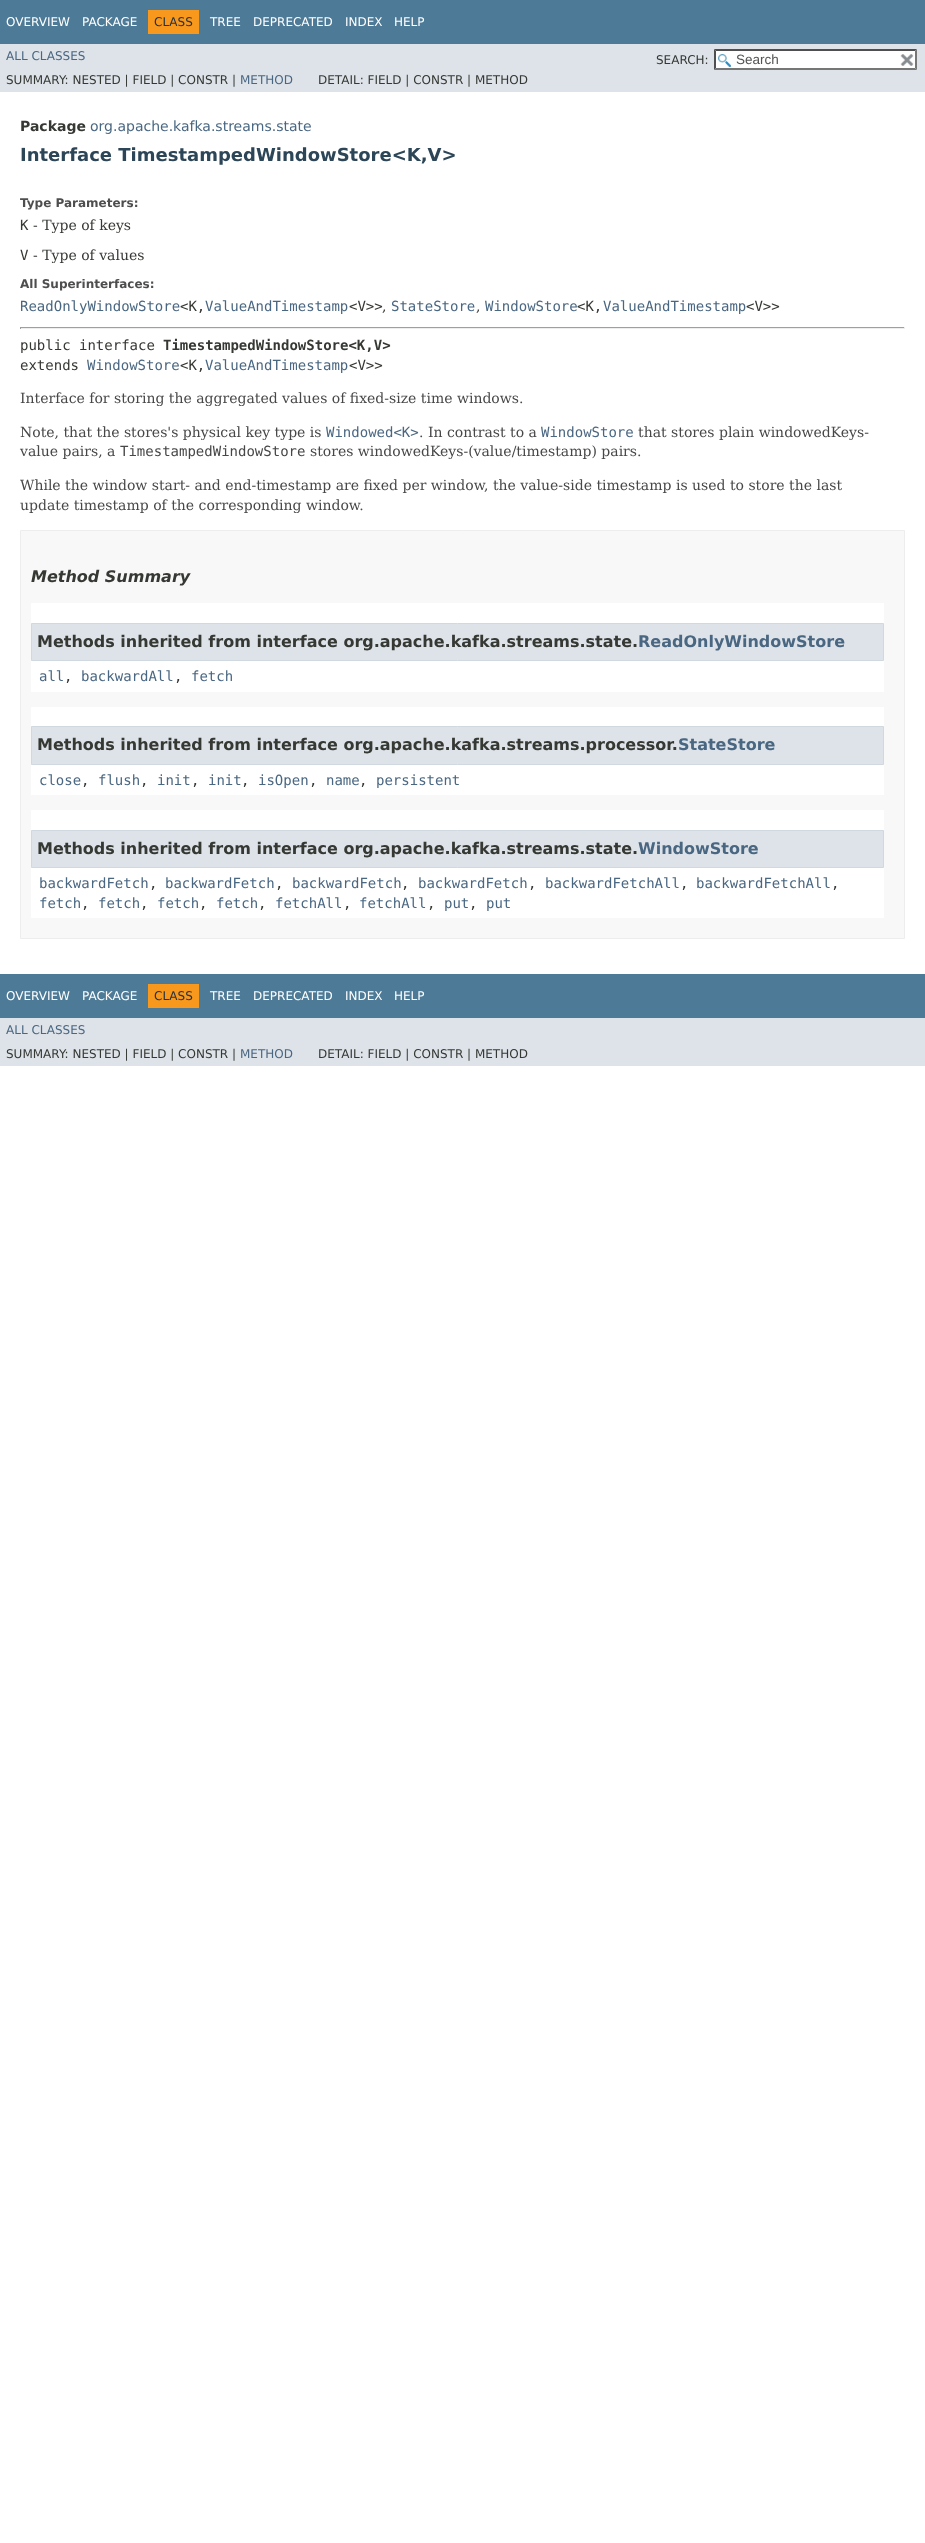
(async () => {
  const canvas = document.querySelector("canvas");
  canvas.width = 925;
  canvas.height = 2543;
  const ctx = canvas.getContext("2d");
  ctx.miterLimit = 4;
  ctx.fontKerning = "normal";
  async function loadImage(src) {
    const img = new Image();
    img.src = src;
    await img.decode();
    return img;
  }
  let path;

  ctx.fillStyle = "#ffffff";
  ctx.fillRect(0, 0, 925, 2543);
  for (const [x, y, w, h, color] of [
    [0, 0, 925, 44, "#4d7a97"],
    [148, 10, 51, 24, "#f8981d"],
    [0, 44, 925, 48, "#dee3e9"],
    [714, 49, 203, 21, "#ffffff"],
  ]) {
    ctx.fillStyle = color;
    ctx.fillRect(x, y, w, h);
  }
  ctx.drawImage(await loadImage("img/1.png"), 718, 54, 13, 13);
  ctx.fillStyle = "#4f4f4f";
  path = new Path2D("M714 49H917L915 51H716Z");
  ctx.fill(path);
  ctx.fillStyle = "#767676";
  path = new Path2D("M917 49V70L915 68V51Z");
  ctx.fill(path);
  path = new Path2D("M917 70H714L716 68H915Z");
  ctx.fill(path);
  ctx.fillStyle = "#4f4f4f";
  path = new Path2D("M714 70V49L716 51V68Z");
  ctx.fill(path);
  ctx.drawImage(await loadImage("img/2.png"), 900, 54, 14, 12);
  for (const [x, y, w, h, color] of [
    [20, 327, 885, 1, "#9f9f9f"],
    [904, 327, 1, 2, "#eeeeee"],
    [20, 328, 885, 1, "#eeeeee"],
    [20, 327, 1, 2, "#9f9f9f"],
  ]) {
    ctx.fillStyle = color;
    ctx.fillRect(x, y, w, h);
  }
  ctx.fillStyle = "#f8f8f8";
  ctx.beginPath();
  ctx.rect(20.5, 530.5, 884, 408);
  ctx.fill();
  ctx.strokeStyle = "#ededed";
  ctx.stroke();
  ctx.fillStyle = "#ffffff";
  ctx.fillRect(31, 603, 853, 89);
  ctx.fillStyle = "#dee3e9";
  ctx.beginPath();
  ctx.rect(31.5, 623.5, 852, 37);
  ctx.fill();
  ctx.strokeStyle = "#d0d9e0";
  ctx.stroke();
  ctx.fillStyle = "#ffffff";
  ctx.fillRect(31, 707, 853, 88);
  ctx.fillStyle = "#dee3e9";
  ctx.beginPath();
  ctx.rect(31.5, 726.5, 852, 38);
  ctx.fill();
  ctx.stroke();
  ctx.fillStyle = "#ffffff";
  ctx.fillRect(31, 810, 853, 108);
  ctx.fillStyle = "#dee3e9";
  ctx.beginPath();
  ctx.rect(31.5, 830.5, 852, 37);
  ctx.fill();
  ctx.stroke();
  for (const [x, y, w, h, color] of [
    [0, 974, 925, 44, "#4d7a97"],
    [148, 984, 51, 24, "#f8981d"],
    [0, 1018, 925, 48, "#dee3e9"],
  ]) {
    ctx.fillStyle = color;
    ctx.fillRect(x, y, w, h);
  }
  ctx.font = "12px DejaVu Sans";
  ctx.fillStyle = "#ffffff";
  ctx.fillText("OVERVIEW", 6, 26);
  ctx.fillText("PACKAGE", 82, 26);
  ctx.fillStyle = "#253441";
  ctx.fillText("CLASS", 154, 26);
  ctx.fillStyle = "#ffffff";
  for (const [text, x, y] of [
    ["TREE", 210, 26],
    ["DEPRECATED", 253, 26],
    ["INDEX", 345, 26],
    ["HELP", 394, 26],
  ]) {
    ctx.fillText(text, x, y);
  }
  ctx.fillStyle = "#4a6782";
  ctx.fillText("ALL CLASSES", 6, 60);
  ctx.fillStyle = "#353833";
  ctx.fillText("SEARCH:", 656, 64);
  ctx.font = "13.5px Liberation Sans";
  ctx.fillStyle = "#545454";
  ctx.fillText("Search", 736, 64);
  ctx.font = "12px DejaVu Sans";
  ctx.fillStyle = "#353833";
  ctx.fillText("SUMMARY: NESTED | FIELD | CONSTR |", 6, 84);
  ctx.fillStyle = "#4a6782";
  ctx.fillText("METHOD", 240, 84);
  ctx.fillStyle = "#353833";
  ctx.fillText("DETAIL: FIELD | CONSTR | METHOD", 318, 84);
  ctx.font = "bold 14px DejaVu Sans";
  ctx.fillText("Package", 20, 131);
  ctx.font = "14px DejaVu Sans";
  ctx.fillStyle = "#4a6782";
  ctx.fillText("org.apache.kafka.streams.state", 90, 131);
  ctx.font = "bold 18px DejaVu Sans";
  ctx.fillStyle = "#2c4557";
  ctx.fillText("Interface TimestampedWindowStore<K,V>", 20, 161);
  ctx.font = "bold 12px DejaVu Sans";
  ctx.fillStyle = "#4e4e4e";
  ctx.fillText("Type Parameters:", 20, 207);
  ctx.font = "14px DejaVu Sans Mono";
  ctx.fillStyle = "#353833";
  ctx.fillText("K", 20, 230);
  ctx.font = "14px DejaVu Serif";
  ctx.fillText("- Type of keys", 33, 230);
  ctx.font = "14px DejaVu Sans Mono";
  ctx.fillText("V", 20, 260);
  ctx.font = "14px DejaVu Serif";
  ctx.fillText("- Type of values", 33, 260);
  ctx.font = "bold 12px DejaVu Sans";
  ctx.fillStyle = "#4e4e4e";
  ctx.fillText("All Superinterfaces:", 20, 288);
  ctx.font = "14px DejaVu Sans Mono";
  ctx.fillStyle = "#4a6782";
  ctx.fillText("ReadOnlyWindowStore", 20, 311);
  ctx.fillStyle = "#353833";
  ctx.fillText("<K,", 180, 311);
  ctx.fillStyle = "#4a6782";
  ctx.fillText("ValueAndTimestamp", 205, 311);
  ctx.fillStyle = "#353833";
  ctx.fillText("<V>>", 349, 311);
  ctx.font = "14px DejaVu Serif";
  ctx.fillText(",", 382, 311);
  ctx.font = "14px DejaVu Sans Mono";
  ctx.fillStyle = "#4a6782";
  ctx.fillText("StateStore", 391, 311);
  ctx.font = "14px DejaVu Serif";
  ctx.fillStyle = "#353833";
  ctx.fillText(",", 476, 311);
  ctx.font = "14px DejaVu Sans Mono";
  ctx.fillStyle = "#4a6782";
  ctx.fillText("WindowStore", 485, 311);
  ctx.fillStyle = "#353833";
  ctx.fillText("<K,", 577, 311);
  ctx.fillStyle = "#4a6782";
  ctx.fillText("ValueAndTimestamp", 603, 311);
  ctx.fillStyle = "#353833";
  ctx.fillText("<V>>", 746, 311);
  ctx.fillText("public interface", 20, 350);
  ctx.font = "bold 14px DejaVu Sans Mono";
  ctx.fillText("TimestampedWindowStore<K,V>", 163, 350);
  ctx.font = "14px DejaVu Sans Mono";
  ctx.fillText("extends", 20, 370);
  ctx.fillStyle = "#4a6782";
  ctx.fillText("WindowStore", 87, 370);
  ctx.fillStyle = "#353833";
  ctx.fillText("<K,", 180, 370);
  ctx.fillStyle = "#4a6782";
  ctx.fillText("ValueAndTimestamp", 205, 370);
  ctx.fillStyle = "#353833";
  ctx.fillText("<V>>", 349, 370);
  ctx.font = "14px DejaVu Serif";
  ctx.fillStyle = "#474747";
  ctx.fillText("Interface for storing the aggregated values of fixed-size time windows.", 20, 403);
  ctx.fillText("Note, that the stores's physical key type is", 20, 437);
  ctx.font = "14px DejaVu Sans Mono";
  ctx.fillStyle = "#4a6782";
  ctx.fillText("Windowed<K>", 326, 437);
  ctx.font = "14px DejaVu Serif";
  ctx.fillStyle = "#474747";
  ctx.fillText(". In contrast to a", 419, 437);
  ctx.font = "14px DejaVu Sans Mono";
  ctx.fillStyle = "#4a6782";
  ctx.fillText("WindowStore", 541, 437);
  ctx.font = "14px DejaVu Serif";
  ctx.fillStyle = "#474747";
  ctx.fillText("that stores plain windowedKeys-", 638, 437);
  ctx.fillText("value pairs, a", 20, 456);
  ctx.font = "14px DejaVu Sans Mono";
  ctx.fillText("TimestampedWindowStore", 120, 456);
  ctx.font = "14px DejaVu Serif";
  for (const [text, x, y] of [
    ["stores windowedKeys-(value/timestamp) pairs.", 310, 456],
    ["While the window start- and end-timestamp are fixed per window, the value-side timestamp is used to store the last", 20, 490],
    ["update timestamp of the corresponding window.", 20, 510],
  ]) {
    ctx.fillText(text, x, y);
  }
  ctx.font = "italic bold 16px DejaVu Sans";
  ctx.fillStyle = "#353833";
  ctx.fillText("Method Summary", 31, 582);
  ctx.font = "bold 16px DejaVu Sans";
  ctx.fillText("Methods inherited from interface org.apache.kafka.streams.state.", 37, 647);
  ctx.fillStyle = "#4a6782";
  ctx.fillText("ReadOnlyWindowStore", 638, 647);
  ctx.font = "14px DejaVu Sans Mono";
  ctx.fillText("all", 39, 681);
  ctx.fillStyle = "#353833";
  ctx.fillText(",", 64, 681);
  ctx.fillStyle = "#4a6782";
  ctx.fillText("backwardAll", 81, 681);
  ctx.fillStyle = "#353833";
  ctx.fillText(",", 174, 681);
  ctx.fillStyle = "#4a6782";
  ctx.fillText("fetch", 191, 681);
  ctx.font = "bold 16px DejaVu Sans";
  ctx.fillStyle = "#353833";
  ctx.fillText("Methods inherited from interface org.apache.kafka.streams.processor.", 37, 750);
  ctx.fillStyle = "#4a6782";
  ctx.fillText("StateStore", 678, 750);
  ctx.font = "14px DejaVu Sans Mono";
  ctx.fillText("close", 39, 785);
  ctx.fillStyle = "#353833";
  ctx.fillText(",", 81, 785);
  ctx.fillStyle = "#4a6782";
  ctx.fillText("flush", 98, 785);
  ctx.fillStyle = "#353833";
  ctx.fillText(",", 140, 785);
  ctx.fillStyle = "#4a6782";
  ctx.fillText("init", 157, 785);
  ctx.fillStyle = "#353833";
  ctx.fillText(",", 191, 785);
  ctx.fillStyle = "#4a6782";
  ctx.fillText("init", 208, 785);
  ctx.fillStyle = "#353833";
  ctx.fillText(",", 241, 785);
  ctx.fillStyle = "#4a6782";
  ctx.fillText("isOpen", 258, 785);
  ctx.fillStyle = "#353833";
  ctx.fillText(",", 309, 785);
  ctx.fillStyle = "#4a6782";
  ctx.fillText("name", 326, 785);
  ctx.fillStyle = "#353833";
  ctx.fillText(",", 359, 785);
  ctx.fillStyle = "#4a6782";
  ctx.fillText("persistent", 376, 785);
  ctx.font = "bold 16px DejaVu Sans";
  ctx.fillStyle = "#353833";
  ctx.fillText("Methods inherited from interface org.apache.kafka.streams.state.", 37, 854);
  ctx.fillStyle = "#4a6782";
  ctx.fillText("WindowStore", 638, 854);
  ctx.font = "14px DejaVu Sans Mono";
  ctx.fillText("backwardFetch", 39, 888);
  ctx.fillStyle = "#353833";
  ctx.fillText(",", 149, 888);
  ctx.fillStyle = "#4a6782";
  ctx.fillText("backwardFetch", 165, 888);
  ctx.fillStyle = "#353833";
  ctx.fillText(",", 275, 888);
  ctx.fillStyle = "#4a6782";
  ctx.fillText("backwardFetch", 292, 888);
  ctx.fillStyle = "#353833";
  ctx.fillText(",", 401, 888);
  ctx.fillStyle = "#4a6782";
  ctx.fillText("backwardFetch", 418, 888);
  ctx.fillStyle = "#353833";
  ctx.fillText(",", 528, 888);
  ctx.fillStyle = "#4a6782";
  ctx.fillText("backwardFetchAll", 545, 888);
  ctx.fillStyle = "#353833";
  ctx.fillText(",", 680, 888);
  ctx.fillStyle = "#4a6782";
  ctx.fillText("backwardFetchAll", 696, 888);
  ctx.fillStyle = "#353833";
  ctx.fillText(",", 831, 888);
  ctx.fillStyle = "#4a6782";
  ctx.fillText("fetch", 39, 908);
  ctx.fillStyle = "#353833";
  ctx.fillText(",", 81, 908);
  ctx.fillStyle = "#4a6782";
  ctx.fillText("fetch", 98, 908);
  ctx.fillStyle = "#353833";
  ctx.fillText(",", 140, 908);
  ctx.fillStyle = "#4a6782";
  ctx.fillText("fetch", 157, 908);
  ctx.fillStyle = "#353833";
  ctx.fillText(",", 199, 908);
  ctx.fillStyle = "#4a6782";
  ctx.fillText("fetch", 216, 908);
  ctx.fillStyle = "#353833";
  ctx.fillText(",", 258, 908);
  ctx.fillStyle = "#4a6782";
  ctx.fillText("fetchAll", 275, 908);
  ctx.fillStyle = "#353833";
  ctx.fillText(",", 343, 908);
  ctx.fillStyle = "#4a6782";
  ctx.fillText("fetchAll", 359, 908);
  ctx.fillStyle = "#353833";
  ctx.fillText(",", 427, 908);
  ctx.fillStyle = "#4a6782";
  ctx.fillText("put", 444, 908);
  ctx.fillStyle = "#353833";
  ctx.fillText(",", 469, 908);
  ctx.fillStyle = "#4a6782";
  ctx.fillText("put", 486, 908);
  ctx.font = "12px DejaVu Sans";
  ctx.fillStyle = "#ffffff";
  ctx.fillText("OVERVIEW", 6, 1000);
  ctx.fillText("PACKAGE", 82, 1000);
  ctx.fillStyle = "#253441";
  ctx.fillText("CLASS", 154, 1000);
  ctx.fillStyle = "#ffffff";
  for (const [text, x, y] of [
    ["TREE", 210, 1000],
    ["DEPRECATED", 253, 1000],
    ["INDEX", 345, 1000],
    ["HELP", 394, 1000],
  ]) {
    ctx.fillText(text, x, y);
  }
  ctx.fillStyle = "#4a6782";
  ctx.fillText("ALL CLASSES", 6, 1034);
  ctx.fillStyle = "#353833";
  ctx.fillText("SUMMARY: NESTED | FIELD | CONSTR |", 6, 1058);
  ctx.fillStyle = "#4a6782";
  ctx.fillText("METHOD", 240, 1058);
  ctx.fillStyle = "#353833";
  ctx.fillText("DETAIL: FIELD | CONSTR | METHOD", 318, 1058);
})();
